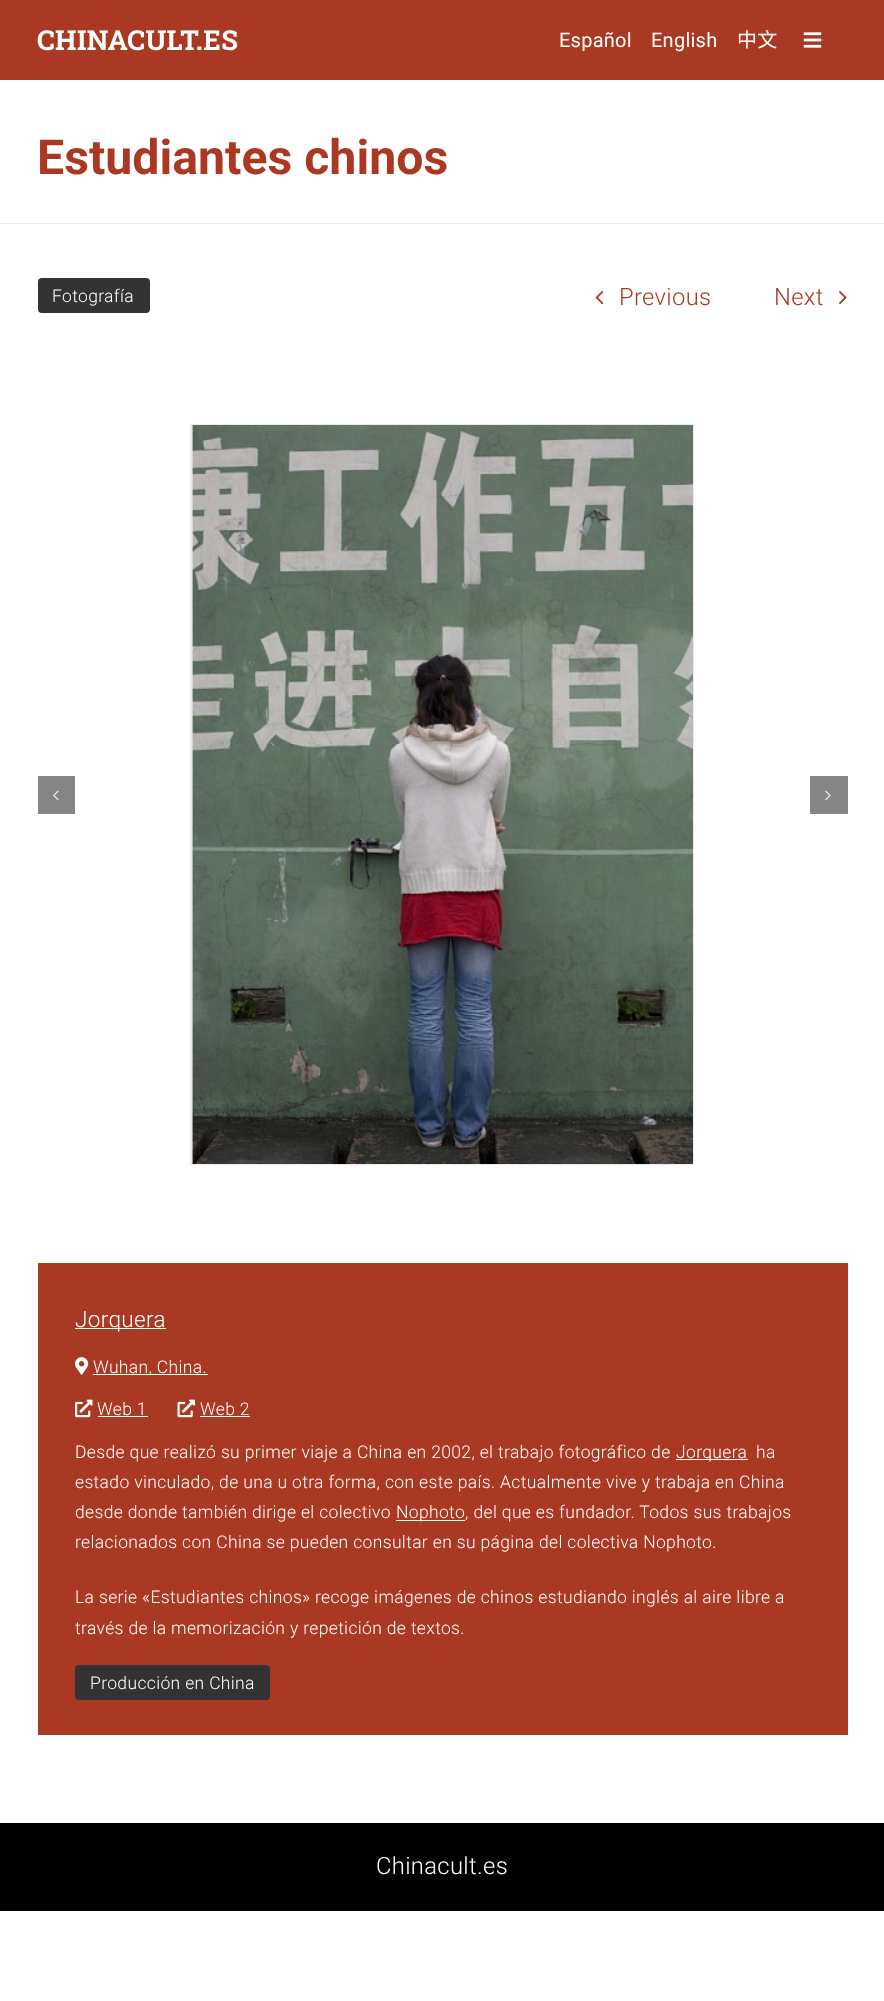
(async () => {
  const canvas = document.querySelector("canvas");
  canvas.width = 884;
  canvas.height = 2001;
  const ctx = canvas.getContext("2d");
  ctx.miterLimit = 4;
  ctx.fontKerning = "normal";
  async function loadImage(src) {
    const img = new Image();
    img.src = src;
    await img.decode();
    return img;
  }

  ctx.fillStyle = "#ffffff";
  ctx.fillRect(0, 0, 884, 2001);
  ctx.fillStyle = "#aa3924";
  ctx.fillRect(0, 0, 884, 80);
  ctx.drawImage(await loadImage("img/1.png"), 803, 32, 19, 16);
  ctx.fillStyle = "#eae9e9";
  ctx.fillRect(0, 223, 884, 1);
  ctx.fillStyle = "#333333";
  ctx.beginPath();
  ctx.roundRect(38, 278, 112, 35, 4);
  ctx.fill();
  ctx.drawImage(await loadImage("img/2.png"), 595, 291, 9, 14);
  ctx.drawImage(await loadImage("img/3.png"), 839, 291, 8, 14);
  ctx.fillStyle = "#858585";
  ctx.fillRect(38, 776, 37, 38);
  ctx.drawImage(await loadImage("img/4.png"), 53, 790, 6, 11);
  ctx.strokeStyle = "#e9eaee";
  ctx.strokeRect(190.5, 424.5, 503, 740);
  ctx.drawImage(await loadImage("img/5.png"), 191, 425, 502, 739);
  ctx.fillRect(810, 776, 38, 38);
  ctx.drawImage(await loadImage("img/6.png"), 825, 790, 6, 11);
  ctx.fillStyle = "#aa3924";
  ctx.fillRect(38, 1263, 810, 472);
  ctx.fillStyle = "#ffffff";
  ctx.fillRect(75, 1328, 91, 1);
  ctx.drawImage(await loadImage("img/7.png"), 75, 1357, 14, 18);
  ctx.fillRect(93, 1374, 115, 1);
  ctx.drawImage(await loadImage("img/8.png"), 75, 1399, 18, 19);
  ctx.fillRect(98, 1416, 50, 1);
  ctx.drawImage(await loadImage("img/9.png"), 177, 1399, 18, 19);
  for (const [x, y, w, h, color] of [
    [200, 1416, 50, 1, "#ffffff"],
    [676, 1459, 72, 1, "#ffffff"],
    [396, 1520, 69, 1, "#ffffff"],
  ]) {
    ctx.fillStyle = color;
    ctx.fillRect(x, y, w, h);
  }
  ctx.fillStyle = "#333333";
  ctx.beginPath();
  ctx.roundRect(75, 1665, 195, 35, 4);
  ctx.fill();
  ctx.fillStyle = "#000000";
  ctx.fillRect(0, 1823, 884, 88);
  ctx.letterSpacing = "0.35px";
  ctx.font = "bold 27.5px Roboto Slab";
  ctx.fillStyle = "#ffffff";
  ctx.fillText("CHINACULT.ES", 37, 50);
  ctx.letterSpacing = "0.25px";
  ctx.font = "20px Roboto";
  ctx.fillText("Español", 559, 47);
  ctx.fillText("English", 651, 47);
  ctx.font = "20px Noto Sans CJK SC";
  ctx.fillText("中文", 737, 47);
  ctx.letterSpacing = "0px";
  ctx.font = "bold 48.25px Roboto";
  ctx.fillStyle = "#aa3924";
  ctx.fillText("Estudiantes chinos", 37, 174);
  ctx.letterSpacing = "0.35px";
  ctx.font = "300 17.5px Roboto";
  ctx.fillStyle = "#ffffff";
  ctx.fillText("Fotografía", 52, 302);
  ctx.font = "300 23.75px Roboto";
  ctx.fillStyle = "#aa3924";
  ctx.fillText("Previous", 619, 305);
  ctx.fillText("Next", 774, 305);
  ctx.font = "300 22.5px Roboto";
  ctx.fillStyle = "#ffffff";
  ctx.fillText("Jorquera", 75, 1327);
  ctx.font = "300 17.5px Roboto";
  for (const [text, x, y] of [
    ["Wuhan, China.", 93, 1373],
    ["Web 1", 97, 1415],
    ["Web 2", 200, 1415],
    ["Desde que realizó su primer viaje a China en 2002, el trabajo fotográfico de", 75, 1458],
    ["Jorquera", 676, 1458],
    ["ha", 756, 1458],
    ["estado vinculado, de una u otra forma, con este país. Actualmente vive y trabaja en China", 75, 1488],
    ["desde donde también dirige el colectivo", 75, 1518],
    ["Nophoto, del que es fundador. Todos sus trabajos", 396, 1518],
    ["relacionados con China se pueden consultar en su página del colectiva Nophoto.", 75, 1548],
    ["La serie «Estudiantes chinos» recoge imágenes de chinos estudiando inglés al aire libre a", 75, 1603],
    ["través de la memorización y repetición de textos.", 75, 1634],
    ["Producción en China", 90, 1689],
  ]) {
    ctx.fillText(text, x, y);
  }
  ctx.font = "300 23.75px Roboto";
  ctx.fillText("Chinacult.es", 376, 1874);
})();
